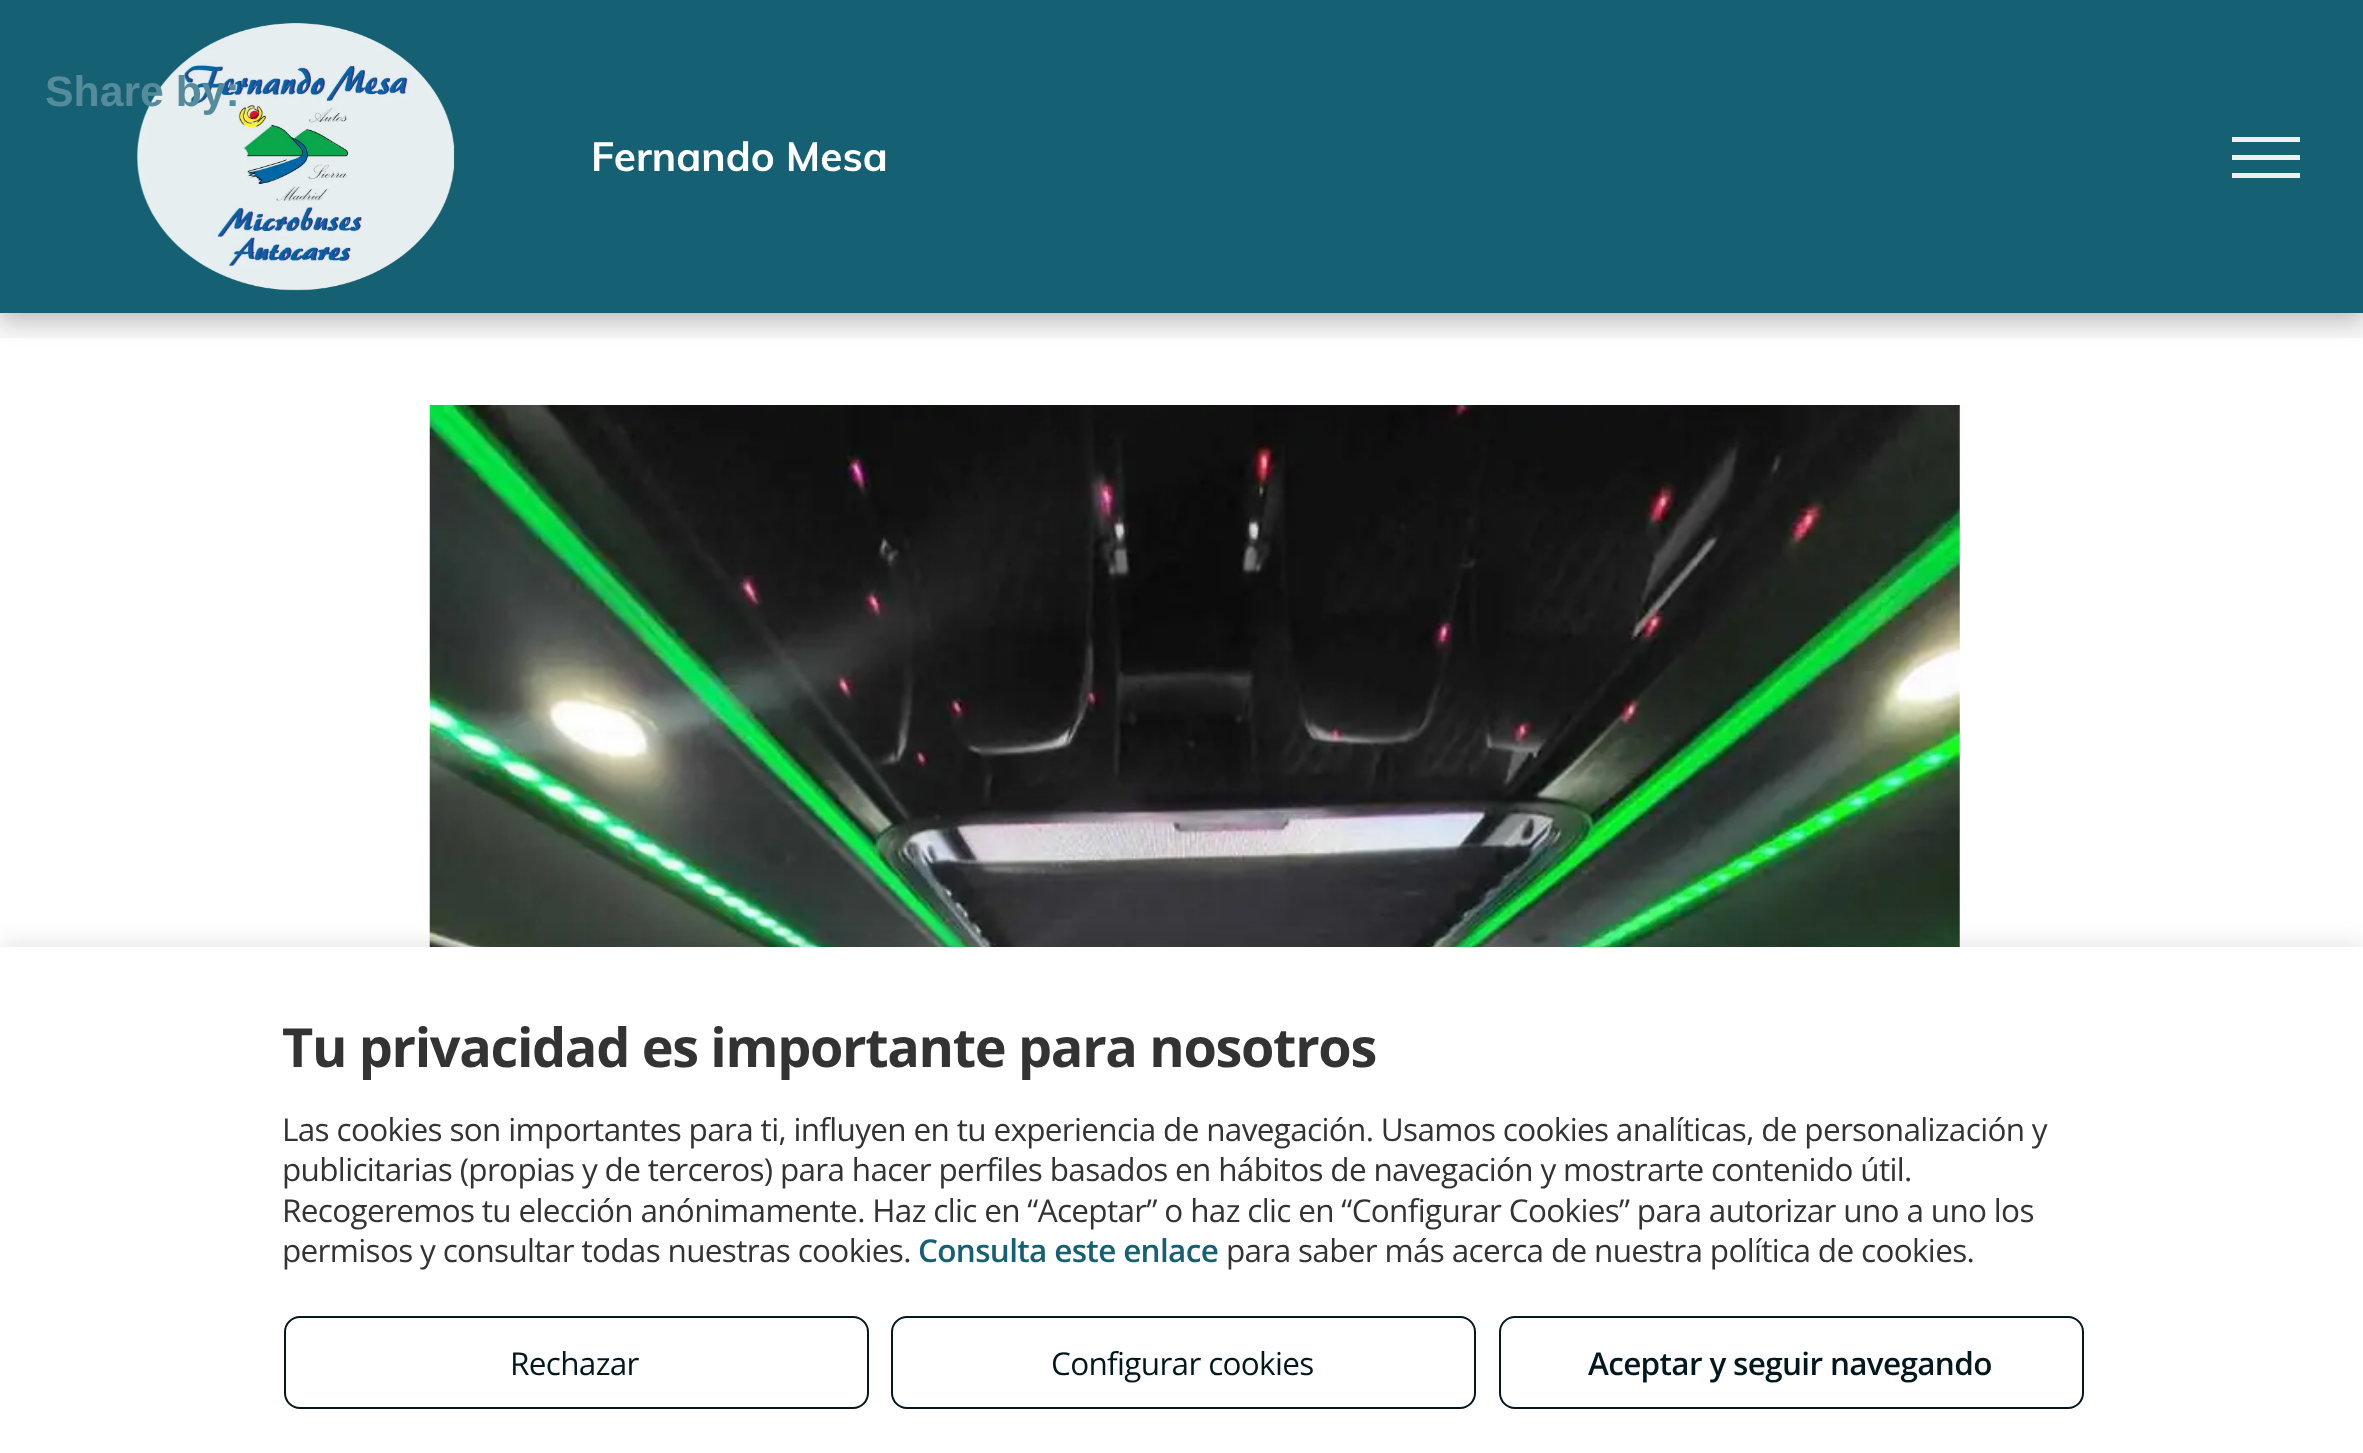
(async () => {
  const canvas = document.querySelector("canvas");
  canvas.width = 2363;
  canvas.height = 1453;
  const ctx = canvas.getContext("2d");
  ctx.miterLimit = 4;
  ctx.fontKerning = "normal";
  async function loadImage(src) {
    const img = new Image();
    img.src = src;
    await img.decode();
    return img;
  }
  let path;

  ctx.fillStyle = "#ffffff";
  ctx.fillRect(0, 0, 2363, 1453);
  ctx.fillStyle = "#156073";
  ctx.fillRect(0, 0, 2363, 313);
  ctx.fillStyle = "#f7f7f7";
  ctx.fillRect(0, 313, 2363, 25);
  ctx.save();
  path = new Path2D("M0 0H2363V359H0ZM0 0H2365V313H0Z");
  ctx.clip(path, "evenodd");
  ctx.fillStyle = "rgba(0, 0, 0, 0.25)";
  ctx.filter = "blur(12.5px)";
  ctx.beginPath();
  ctx.rect(0, 7, 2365, 313);
  ctx.fill();
  ctx.filter = "none";
  ctx.restore();
  ctx.drawImage(await loadImage("img/1.png"), 137, 23, 318, 268);
  for (const [x, y, w, h, color] of [
    [2232, 137, 68, 5, "#f0f0f0"],
    [2232, 155, 68, 5, "#f0f0f0"],
    [2232, 173, 68, 5, "#f0f0f0"],
  ]) {
    ctx.fillStyle = color;
    ctx.fillRect(x, y, w, h);
  }
  ctx.drawImage(await loadImage("img/2.png"), 429, 405, 1531, 542);
  ctx.fillStyle = "rgba(0, 0, 0, 0.1)";
  ctx.filter = "blur(11px)";
  ctx.beginPath();
  ctx.rect(0, 943, 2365, 506);
  ctx.fill();
  ctx.filter = "none";
  ctx.fillStyle = "#ffffff";
  ctx.fillRect(0, 947, 2363, 506);
  ctx.beginPath();
  ctx.roundRect(285, 1317, 583, 91, 15);
  ctx.strokeStyle = "#03181e";
  ctx.lineWidth = 2;
  ctx.stroke();
  ctx.beginPath();
  ctx.roundRect(892, 1317, 583, 91, 15);
  ctx.stroke();
  ctx.beginPath();
  ctx.roundRect(1500, 1317, 583, 91, 15);
  ctx.stroke();
  ctx.font = "bold 42.75px Liberation Sans";
  ctx.fillStyle = "#568b9c";
  ctx.fillText("Share by:", 45, 106);
  ctx.font = "bold 40.5px Muli";
  ctx.fillStyle = "#ffffff";
  ctx.fillText("Fernando Mesa", 591, 171);
  ctx.letterSpacing = "-1.35px";
  ctx.font = "bold 54px Open Sans";
  ctx.fillStyle = "#333333";
  ctx.fillText("Tu privacidad es importante para nosotros", 282, 1067);
  ctx.letterSpacing = "-0.67px";
  ctx.font = "31.5px Open Sans";
  for (const [text, x, y] of [
    ["Las cookies son importantes para ti, influyen en tu experiencia de navegación. Usamos cookies analíticas, de personalización y", 282, 1141],
    ["publicitarias (propias y de terceros) para hacer perfiles basados en hábitos de navegación y mostrarte contenido útil.", 282, 1181],
    ["Recogeremos tu elección anónimamente. Haz clic en “Aceptar” o haz clic en “Configurar Cookies” para autorizar uno a uno los", 282, 1222],
    ["permisos y consultar todas nuestras cookies.", 282, 1262],
  ]) {
    ctx.fillText(text, x, y);
  }
  ctx.font = "600 31.5px Open Sans";
  ctx.fillStyle = "#156073";
  ctx.fillText("Consulta este enlace", 918, 1262);
  ctx.font = "31.5px Open Sans";
  ctx.fillStyle = "#333333";
  ctx.fillText("para saber más acerca de nuestra política de cookies.", 1226, 1262);
  ctx.fillStyle = "#03181e";
  ctx.fillText("Rechazar", 510, 1375);
  ctx.fillText("Configurar cookies", 1051, 1375);
  ctx.font = "600 31.5px Open Sans";
  ctx.fillText("Aceptar y seguir navegando", 1588, 1375);
})();
